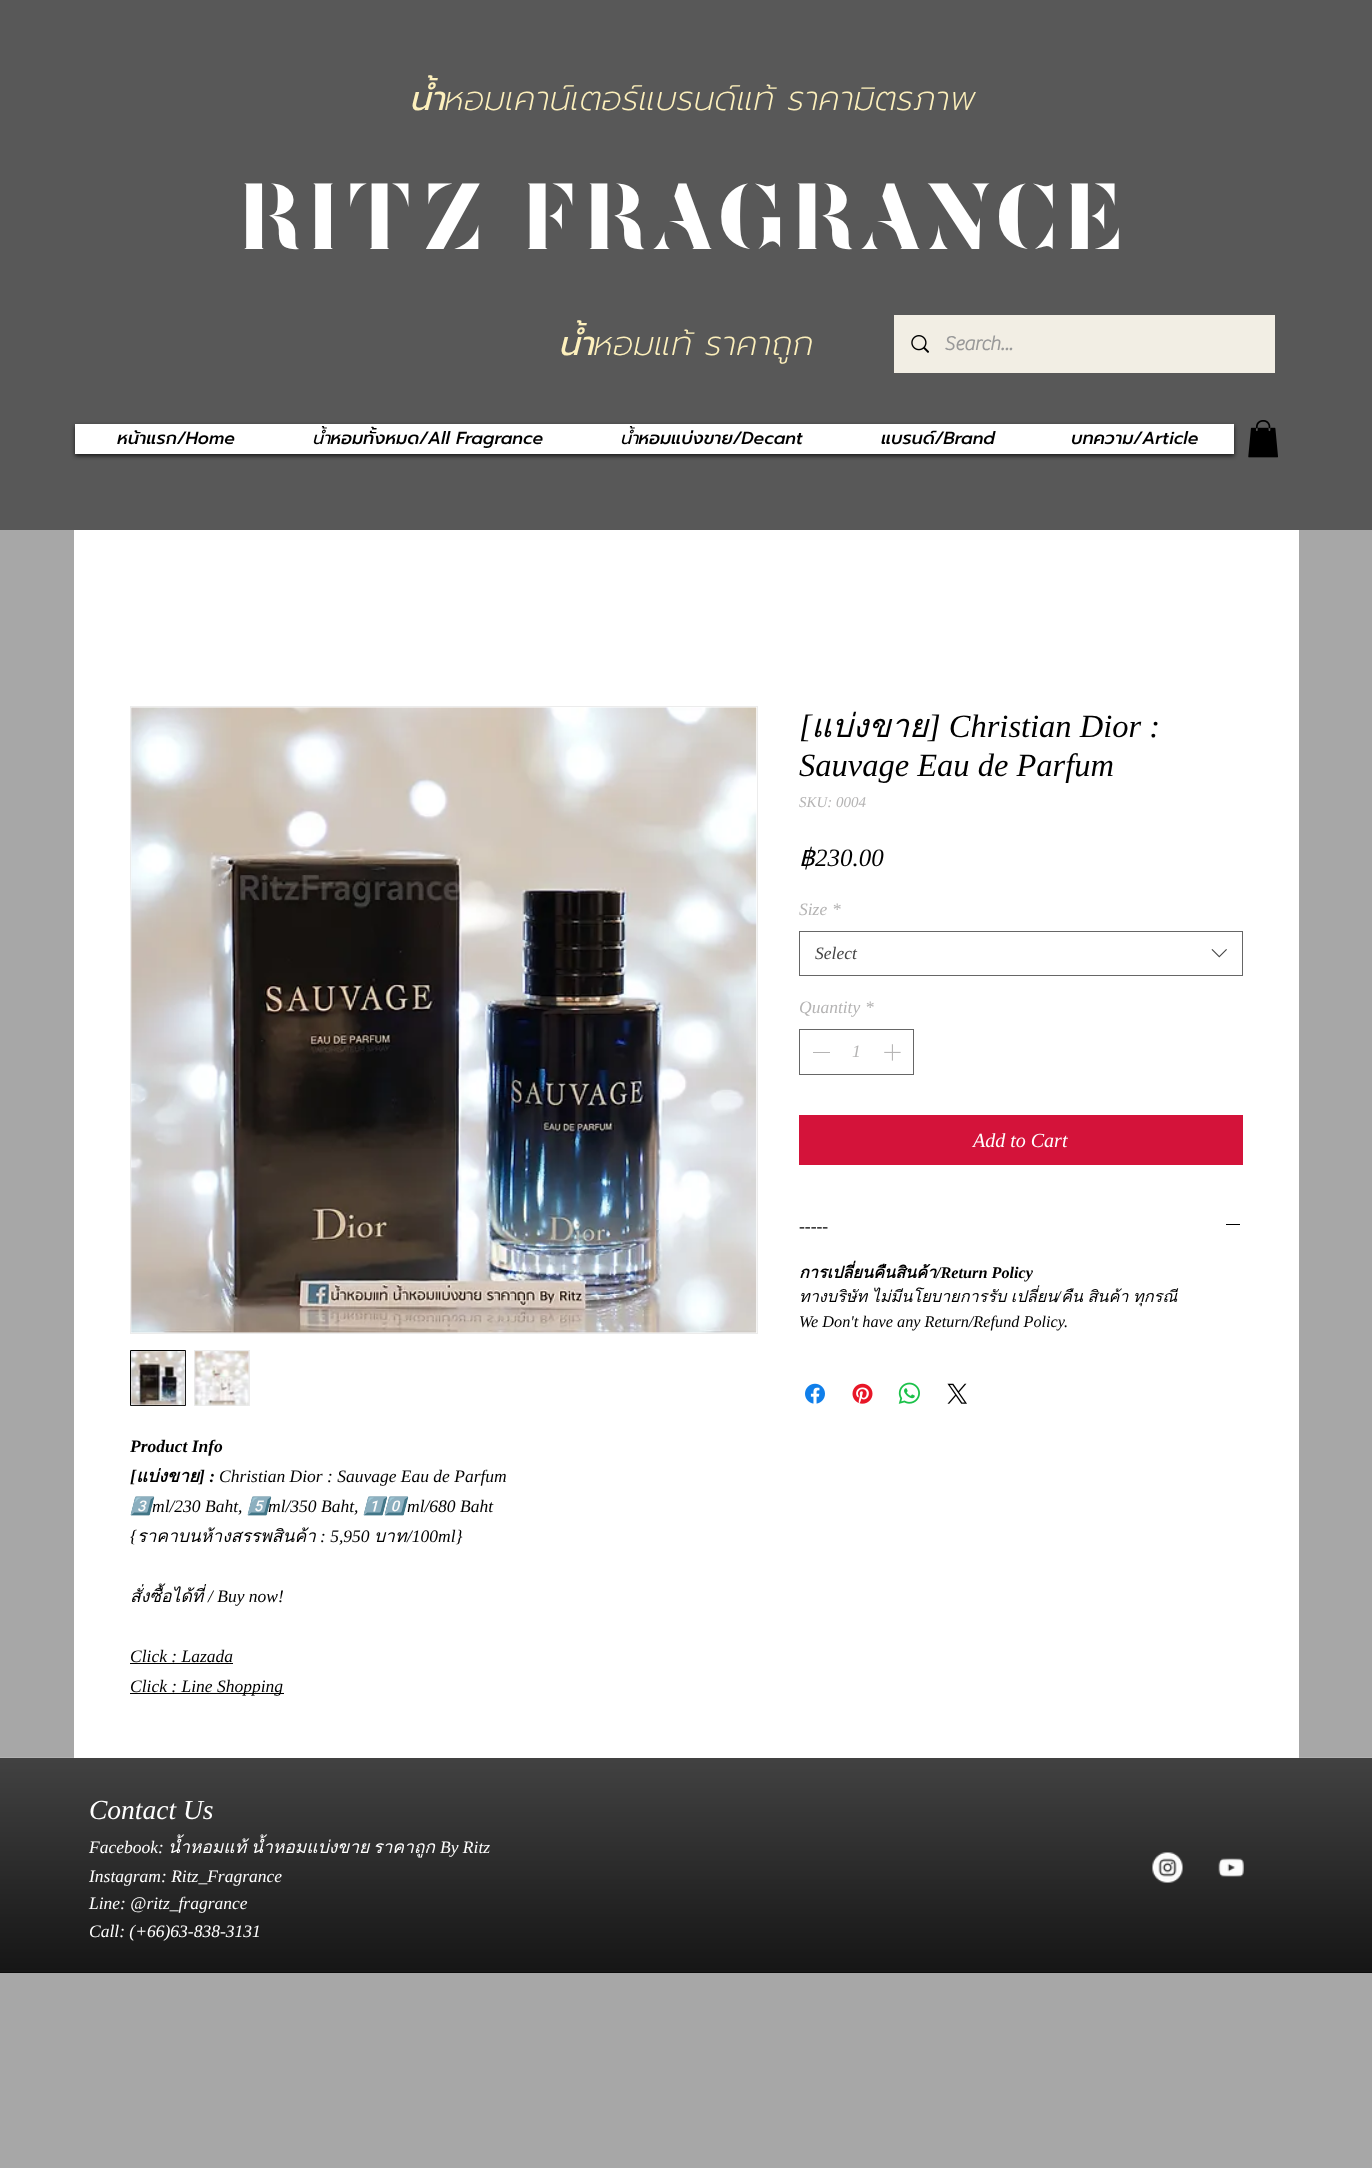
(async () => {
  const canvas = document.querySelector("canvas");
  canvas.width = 1372;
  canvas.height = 2168;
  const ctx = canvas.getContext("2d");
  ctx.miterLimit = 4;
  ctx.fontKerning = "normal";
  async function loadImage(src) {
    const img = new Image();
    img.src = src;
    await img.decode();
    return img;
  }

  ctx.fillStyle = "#a7a7a7";
  ctx.fillRect(0, 0, 1372, 2168);
  ctx.fillStyle = "#585858";
  ctx.fillRect(0, 0, 1372, 530);
  ctx.fillStyle = "#f2eee4";
  ctx.fillRect(894, 315, 381, 58);
  ctx.drawImage(await loadImage("img/1.png"), 911, 335, 18, 18);
  ctx.fillStyle = "rgba(0, 0, 0, 0.7)";
  ctx.filter = "blur(2px)";
  ctx.beginPath();
  ctx.rect(75, 426, 1159, 30);
  ctx.fill();
  ctx.filter = "none";
  ctx.fillStyle = "#ffffff";
  ctx.fillRect(75, 424, 1159, 30);
  ctx.drawImage(await loadImage("img/2.png"), 1248, 420, 30, 38);
  ctx.fillRect(74, 530, 1225, 1228);
  ctx.strokeStyle = "#666666";
  ctx.strokeRect(799.5, 931.5, 443, 44);
  ctx.drawImage(await loadImage("img/3.png"), 1211, 949, 16, 9);
  ctx.strokeRect(799.5, 1029.5, 114, 45);
  ctx.fillStyle = "#b5b4b4";
  ctx.fillRect(813, 1052, 17, 1);
  ctx.drawImage(await loadImage("img/4.png"), 884, 1044, 17, 17);
  ctx.fillStyle = "#d4133a";
  ctx.fillRect(799, 1115, 444, 50);
  ctx.fillStyle = "#000000";
  ctx.fillRect(1226, 1224, 14, 1);
  ctx.drawImage(await loadImage("img/5.png"), 805, 1383, 20, 21);
  ctx.drawImage(await loadImage("img/6.png"), 852, 1383, 21, 21);
  ctx.drawImage(await loadImage("img/7.png"), 898, 1382, 22, 22);
  ctx.drawImage(await loadImage("img/8.png"), 947, 1383, 20, 21);
  ctx.strokeStyle = "#ececec";
  ctx.strokeRect(130.5, 706.5, 627, 627);
  ctx.drawImage(await loadImage("img/9.png"), 131, 707, 626, 626);
  ctx.fillStyle = "#ececec";
  ctx.beginPath();
  ctx.rect(130.5, 1350.5, 55, 55);
  ctx.fill();
  ctx.strokeStyle = "#000000";
  ctx.stroke();
  ctx.drawImage(await loadImage("img/10.png"), 131, 1351, 55, 55);
  ctx.fillRect(194, 1350, 56, 56);
  ctx.drawImage(await loadImage("img/11.png"), 194, 1351, 55, 55);
  for (const [x, y, w, h, color] of [
    [130, 1663, 103, 1, "#000000"],
    [130, 1693, 154, 1, "#000000"],
    [0, 1758, 1372, 215, "#000000"],
  ]) {
    ctx.fillStyle = color;
    ctx.fillRect(x, y, w, h);
  }
  ctx.drawImage(await loadImage("img/12.png"), 0, 1757, 1372, 216);
  ctx.drawImage(await loadImage("img/13.png"), 1152, 1852, 31, 31);
  ctx.drawImage(await loadImage("img/14.png"), 1218, 1858, 26, 19);
  ctx.font = "italic 200 33.75px Prompt";
  ctx.fillStyle = "#fdf0bc";
  ctx.fillText("น้ำหอมเคาน์เตอร์แบรนด์แท้ ราคามิตรภาพ", 409, 110);
  ctx.letterSpacing = "8.75px";
  ctx.font = "87.5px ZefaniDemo";
  ctx.fillStyle = "#ffffff";
  ctx.fillText("RITZ FRAGRANCE", 240, 249);
  ctx.letterSpacing = "0px";
  ctx.font = "italic 200 33.75px Prompt";
  ctx.fillStyle = "#fdf0bc";
  ctx.fillText("น้ำหอมแท้ ราคาถูก", 558, 355);
  ctx.font = "bold 20px 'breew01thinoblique'";
  ctx.fillStyle = "#999999";
  ctx.fillText("Search...", 944, 350);
  ctx.font = "italic 500 17.5px Prompt";
  ctx.fillStyle = "#000000";
  for (const [text, x, y] of [
    ["หน้าแรก/Home", 117, 444],
    ["น้ำหอมทั้งหมด/All Fragrance", 312, 444],
    ["น้ำหอมแบ่งขาย/Decant", 620, 444],
    ["แบรนด์/Brand", 881, 444],
    ["บทความ/Article", 1071, 444],
  ]) {
    ctx.fillText(text, x, y);
  }
  ctx.font = "italic 32.5px Liberation Serif";
  ctx.fillText("[", 799, 737);
  ctx.font = "italic 32.5px Loma";
  ctx.fillText("แบ่งขาย", 811, 737);
  ctx.font = "italic 32.5px Liberation Serif";
  ctx.fillText("] Christian Dior :", 928, 737);
  ctx.fillText("Sauvage Eau de Parfum", 799, 776);
  ctx.font = "italic 15px Liberation Serif";
  ctx.fillStyle = "#b5b4b4";
  ctx.fillText("SKU: 0004", 799, 807);
  ctx.font = "italic 25px DejaVu Sans";
  ctx.fillStyle = "#000000";
  ctx.fillText("฿", 799, 866);
  ctx.font = "italic 25px Liberation Serif";
  ctx.fillText("230.00", 815, 866);
  ctx.font = "italic 17.5px Liberation Serif";
  ctx.fillStyle = "#b5b4b4";
  ctx.fillText("Size", 799, 915);
  ctx.fillText("*", 832, 915);
  ctx.fillStyle = "#444444";
  ctx.fillText("Select", 815, 959);
  ctx.fillStyle = "#b5b4b4";
  for (const [text, x, y] of [
    ["Quantity", 799, 1013],
    ["*", 865, 1013],
    ["1", 852, 1057],
  ]) {
    ctx.fillText(text, x, y);
  }
  ctx.font = "italic 20px Liberation Serif";
  ctx.fillStyle = "#ffffff";
  ctx.fillText("Add to Cart", 973, 1147);
  ctx.font = "italic 17.5px Liberation Serif";
  ctx.fillStyle = "#000000";
  ctx.fillText("-----", 799, 1232);
  ctx.font = "italic bold 16.25px Loma";
  ctx.fillText("การเปลี่ยนคืนสินค้า", 799, 1278);
  ctx.font = "italic bold 16.25px Liberation Serif";
  ctx.fillText("/Return Policy", 936, 1278);
  ctx.wordSpacing = "-1px";
  ctx.font = "italic 16.25px Loma";
  ctx.fillText("ทางบริษัท ไม่มีนโยบายการรับ เปลี่ยน", 799, 1302);
  ctx.wordSpacing = "0px";
  ctx.font = "italic 16.25px Liberation Serif";
  ctx.fillText("/", 1056, 1302);
  ctx.wordSpacing = "-1px";
  ctx.font = "italic 16.25px Loma";
  ctx.fillText("คืน สินค้า ทุกรณี", 1061, 1302);
  ctx.wordSpacing = "0px";
  ctx.font = "italic 16.25px Liberation Serif";
  ctx.fillText("We Don't have any Return/Refund Policy.", 799, 1327);
  ctx.font = "italic bold 17.5px Liberation Serif";
  ctx.fillText("Product Info", 130, 1452);
  ctx.fillText("[", 130, 1482);
  ctx.font = "italic bold 17.5px Loma";
  ctx.fillText("แบ่งขาย", 136, 1482);
  ctx.font = "italic bold 17.5px Liberation Serif";
  ctx.fillText("] :", 199, 1482);
  ctx.font = "italic 17.5px Liberation Serif";
  ctx.fillText("Christian Dior : Sauvage Eau de Parfum", 219, 1482);
  ctx.font = "italic 17.5px Noto Color Emoji";
  ctx.fillText("3️⃣", 130, 1512);
  ctx.font = "italic 17.5px Liberation Serif";
  ctx.fillText("ml/230 Baht,", 152, 1512);
  ctx.font = "italic 17.5px Noto Color Emoji";
  ctx.fillText("5️⃣", 247, 1512);
  ctx.font = "italic 17.5px Liberation Serif";
  ctx.fillText("ml/350 Baht,", 268, 1512);
  ctx.font = "italic 17.5px Noto Color Emoji";
  ctx.fillText("1️⃣0️⃣", 363, 1512);
  ctx.font = "italic 17.5px Liberation Serif";
  ctx.fillText("ml/680 Baht", 407, 1512);
  ctx.fillText("{", 130, 1542);
  ctx.font = "italic 17.5px Loma";
  ctx.fillText("ราคาบนห้างสรรพสินค้า", 137, 1542);
  ctx.font = "italic 17.5px Liberation Serif";
  ctx.fillText(": 5,950", 320, 1542);
  ctx.font = "italic 17.5px Loma";
  ctx.fillText("บาท", 374, 1542);
  ctx.font = "italic 17.5px Liberation Serif";
  ctx.fillText("/100ml}", 407, 1542);
  ctx.save();
  ctx.beginPath();
  ctx.rect(130, 1431, 378, 270);
  ctx.clip();
  ctx.font = "italic 17.5px Loma";
  ctx.fillText("สั่งซื้อได้ที่", 130, 1602);
  ctx.restore();
  for (const [text, x, y] of [
    ["/ Buy now!", 208, 1602],
    ["Click : Lazada", 130, 1662],
    ["Click : Line Shopping", 130, 1692],
  ]) {
    ctx.fillText(text, x, y);
  }
  ctx.font = "italic 27.5px Liberation Serif";
  ctx.fillStyle = "#ffffff";
  ctx.fillText("Contact Us", 89, 1819);
  ctx.font = "italic 17.5px Liberation Serif";
  ctx.fillText("Facebook:", 89, 1853);
  ctx.font = "italic 17.5px Loma";
  for (const [text, x, y] of [
    ["น้ำหอมแท้", 168, 1853],
    ["น้ำหอมแบ่งขาย", 251, 1853],
    ["ราคาถูก", 373, 1853],
  ]) {
    ctx.fillText(text, x, y);
  }
  ctx.font = "italic 17.5px Liberation Serif";
  for (const [text, x, y] of [
    ["By Ritz", 440, 1853],
    ["Instagram: Ritz_Fragrance", 89, 1882],
    ["Line: @ritz_fragrance", 89, 1909],
    ["Call: (+66)63-838-3131", 89, 1937],
  ]) {
    ctx.fillText(text, x, y);
  }
})();
